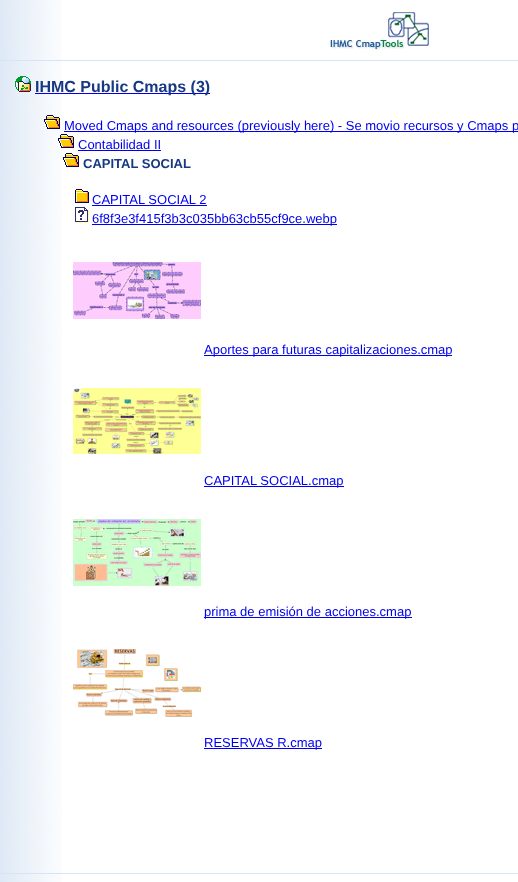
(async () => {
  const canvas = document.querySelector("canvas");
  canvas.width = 518;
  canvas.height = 882;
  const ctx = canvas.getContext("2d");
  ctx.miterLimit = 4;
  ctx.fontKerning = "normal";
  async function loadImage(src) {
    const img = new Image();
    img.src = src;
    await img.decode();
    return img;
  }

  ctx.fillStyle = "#ffffff";
  ctx.fillRect(0, 0, 518, 882);
  ctx.drawImage(await loadImage("img/1.png"), 0, 0, 62, 882);
  ctx.drawImage(await loadImage("img/2.png"), 330, 12, 99, 39);
  ctx.fillStyle = "#d7e4f3";
  ctx.fillRect(0, 60, 518, 1);
  ctx.drawImage(await loadImage("img/3.png"), 15, 76, 16, 16);
  ctx.fillStyle = "#0000ee";
  ctx.fillRect(35, 93, 175, 1);
  ctx.drawImage(await loadImage("img/4.png"), 44, 115, 16, 14);
  ctx.fillRect(64, 131, 454, 1);
  ctx.drawImage(await loadImage("img/5.png"), 58, 134, 16, 14);
  ctx.fillRect(78, 150, 83, 1);
  ctx.drawImage(await loadImage("img/6.png"), 63, 153, 16, 14);
  ctx.drawImage(await loadImage("img/7.png"), 75, 189, 14, 14);
  ctx.fillRect(92, 205, 115, 1);
  ctx.drawImage(await loadImage("img/8.png"), 75, 207, 14, 16);
  ctx.fillRect(92, 224, 245, 1);
  ctx.drawImage(await loadImage("img/9.png"), 73, 262, 128, 57);
  ctx.fillRect(204, 355, 248, 1);
  ctx.drawImage(await loadImage("img/10.png"), 73, 388, 128, 66);
  ctx.fillRect(204, 486, 140, 1);
  ctx.drawImage(await loadImage("img/11.png"), 73, 519, 128, 67);
  ctx.fillRect(204, 617, 208, 1);
  ctx.drawImage(await loadImage("img/12.png"), 73, 649, 128, 68);
  ctx.fillRect(204, 748, 118, 1);
  ctx.fillStyle = "#d7e4f3";
  ctx.fillRect(0, 873, 518, 1);
  ctx.font = "bold 16px Liberation Sans";
  ctx.fillStyle = "#173883";
  ctx.fillText("IHMC Public Cmaps (3)", 35, 92);
  ctx.font = "13px Liberation Sans";
  ctx.fillStyle = "#0000ee";
  ctx.fillText("Moved Cmaps and resources (previously here) - Se movio recursos y Cmaps p", 64, 130);
  ctx.fillText("Contabilidad II", 78, 149);
  ctx.font = "bold 13px Liberation Sans";
  ctx.fillStyle = "#173883";
  ctx.fillText("CAPITAL SOCIAL", 83, 168);
  ctx.font = "13px Liberation Sans";
  ctx.fillStyle = "#0000ee";
  for (const [text, x, y] of [
    ["CAPITAL SOCIAL 2", 92, 204],
    ["6f8f3e3f415f3b3c035bb63cb55cf9ce.webp", 92, 223],
    ["Aportes para futuras capitalizaciones.cmap", 204, 354],
    ["CAPITAL SOCIAL.cmap", 204, 485],
    ["prima de emisión de acciones.cmap", 204, 616],
    ["RESERVAS R.cmap", 204, 747],
  ]) {
    ctx.fillText(text, x, y);
  }
})();
